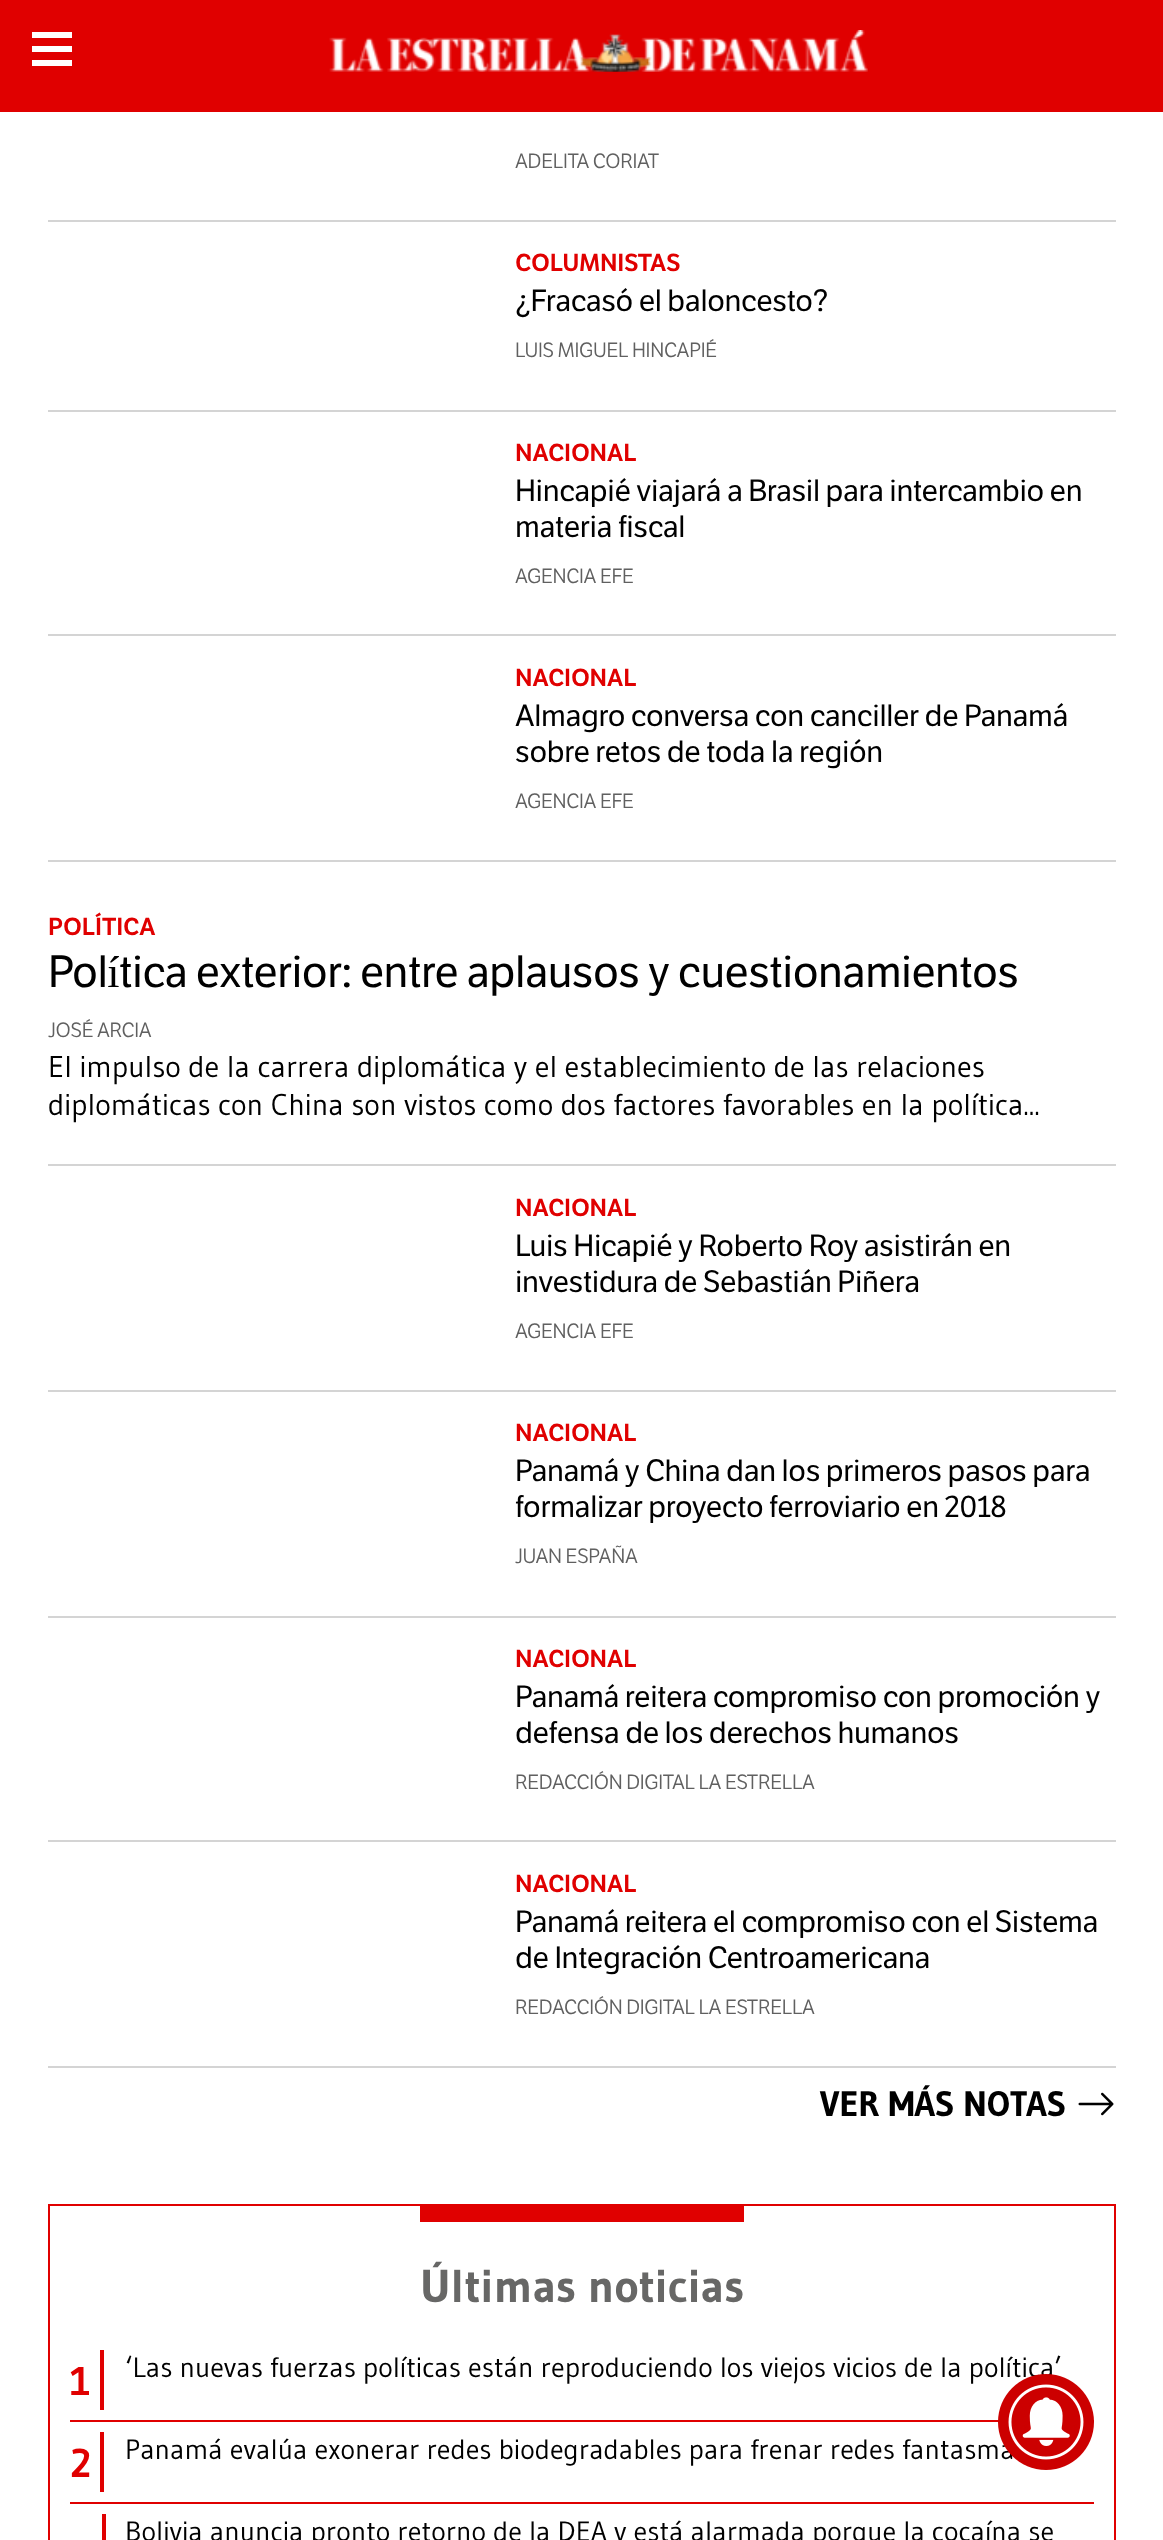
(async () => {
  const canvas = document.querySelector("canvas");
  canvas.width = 1163;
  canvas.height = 2540;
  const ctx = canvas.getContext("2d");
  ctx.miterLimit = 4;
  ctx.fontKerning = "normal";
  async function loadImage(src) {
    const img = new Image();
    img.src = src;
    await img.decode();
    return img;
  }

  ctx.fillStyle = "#ffffff";
  ctx.fillRect(0, 0, 1163, 2540);
  for (const [x, y, w, h, color] of [
    [0, 0, 1163, 112, "#e00000"],
    [32, 32, 40, 6, "#ffffff"],
    [32, 46, 40, 6, "#ffffff"],
    [32, 60, 40, 6, "#ffffff"],
  ]) {
    ctx.fillStyle = color;
    ctx.fillRect(x, y, w, h);
  }
  ctx.drawImage(await loadImage("img/1.png"), 329, 30, 539, 42);
  for (const [x, y, w, h, color] of [
    [48, 220, 1068, 2, "#d4d4d4"],
    [48, 410, 1068, 2, "#d4d4d4"],
    [48, 634, 1068, 2, "#d4d4d4"],
    [48, 860, 1068, 2, "#d4d4d4"],
    [48, 1164, 1068, 2, "#d4d4d4"],
    [48, 1390, 1068, 2, "#d4d4d4"],
    [48, 1616, 1068, 2, "#d4d4d4"],
    [48, 1840, 1068, 2, "#d4d4d4"],
    [48, 2066, 1068, 2, "#d4d4d4"],
  ]) {
    ctx.fillStyle = color;
    ctx.fillRect(x, y, w, h);
  }
  ctx.drawImage(await loadImage("img/2.png"), 1078, 2092, 36, 24);
  ctx.strokeStyle = "#e00000";
  ctx.lineWidth = 2;
  ctx.strokeRect(49, 2205, 1066, 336);
  for (const [x, y, w, h, color] of [
    [420, 2206, 324, 16, "#e00000"],
    [70, 2420, 1024, 2, "#e00000"],
    [100, 2350, 4, 60, "#e00000"],
    [70, 2502, 1024, 2, "#e00000"],
    [100, 2432, 4, 60, "#e00000"],
    [102, 2514, 4, 26, "#e00000"],
  ]) {
    ctx.fillStyle = color;
    ctx.fillRect(x, y, w, h);
  }
  ctx.letterSpacing = "-0.3px";
  ctx.font = "300 20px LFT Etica";
  ctx.fillStyle = "#606060";
  ctx.fillText("ADELITA CORIAT", 515, 168);
  ctx.letterSpacing = "-0.25px";
  ctx.font = "600 24px LFT Etica";
  ctx.fillStyle = "#e00000";
  ctx.fillText("COLUMNISTAS", 515, 271);
  ctx.letterSpacing = "-0.35px";
  ctx.font = "30px LFT Etica";
  ctx.fillStyle = "#000000";
  ctx.fillText("¿Fracasó el baloncesto?", 515, 311);
  ctx.letterSpacing = "-0.3px";
  ctx.font = "300 20px LFT Etica";
  ctx.fillStyle = "#606060";
  ctx.fillText("LUIS MIGUEL HINCAPIÉ", 515, 357);
  ctx.letterSpacing = "-0.25px";
  ctx.font = "600 24px LFT Etica";
  ctx.fillStyle = "#e00000";
  ctx.fillText("NACIONAL", 515, 461);
  ctx.letterSpacing = "-0.35px";
  ctx.font = "30px LFT Etica";
  ctx.fillStyle = "#000000";
  ctx.fillText("Hincapié viajará a Brasil para intercambio en", 515, 501);
  ctx.fillText("materia fiscal", 515, 537);
  ctx.letterSpacing = "-0.3px";
  ctx.font = "300 20px LFT Etica";
  ctx.fillStyle = "#606060";
  ctx.fillText("AGENCIA EFE", 515, 583);
  ctx.letterSpacing = "-0.25px";
  ctx.font = "600 24px LFT Etica";
  ctx.fillStyle = "#e00000";
  ctx.fillText("NACIONAL", 515, 686);
  ctx.letterSpacing = "-0.35px";
  ctx.font = "30px LFT Etica";
  ctx.fillStyle = "#000000";
  ctx.fillText("Almagro conversa con canciller de Panamá", 515, 726);
  ctx.fillText("sobre retos de toda la región", 515, 762);
  ctx.letterSpacing = "-0.3px";
  ctx.font = "300 20px LFT Etica";
  ctx.fillStyle = "#606060";
  ctx.fillText("AGENCIA EFE", 515, 808);
  ctx.letterSpacing = "-0.25px";
  ctx.font = "600 24px LFT Etica";
  ctx.fillStyle = "#e00000";
  ctx.fillText("POLÍTICA", 48, 935);
  ctx.letterSpacing = "-0.52px";
  ctx.font = "44px LFT Etica";
  ctx.fillStyle = "#000000";
  ctx.fillText("Política exterior: entre aplausos y cuestionamientos", 48, 987);
  ctx.letterSpacing = "-0.3px";
  ctx.font = "300 20px LFT Etica";
  ctx.fillStyle = "#606060";
  ctx.fillText("JOSÉ ARCIA", 48, 1037);
  ctx.letterSpacing = "0px";
  ctx.font = "30px Gudea";
  ctx.fillStyle = "#000000";
  ctx.fillText("El impulso de la carrera diplomática y el establecimiento de las relaciones", 48, 1077);
  ctx.fillText("diplomáticas con China son vistos como dos factores favorables en la política...", 48, 1115);
  ctx.letterSpacing = "-0.25px";
  ctx.font = "600 24px LFT Etica";
  ctx.fillStyle = "#e00000";
  ctx.fillText("NACIONAL", 515, 1216);
  ctx.letterSpacing = "-0.35px";
  ctx.font = "30px LFT Etica";
  ctx.fillStyle = "#000000";
  ctx.fillText("Luis Hicapié y Roberto Roy asistirán en", 515, 1256);
  ctx.fillText("investidura de Sebastián Piñera", 515, 1292);
  ctx.letterSpacing = "-0.3px";
  ctx.font = "300 20px LFT Etica";
  ctx.fillStyle = "#606060";
  ctx.fillText("AGENCIA EFE", 515, 1338);
  ctx.letterSpacing = "-0.25px";
  ctx.font = "600 24px LFT Etica";
  ctx.fillStyle = "#e00000";
  ctx.fillText("NACIONAL", 515, 1441);
  ctx.letterSpacing = "-0.35px";
  ctx.font = "30px LFT Etica";
  ctx.fillStyle = "#000000";
  ctx.fillText("Panamá y China dan los primeros pasos para", 515, 1481);
  ctx.fillText("formalizar proyecto ferroviario en 2018", 515, 1517);
  ctx.letterSpacing = "-0.3px";
  ctx.font = "300 20px LFT Etica";
  ctx.fillStyle = "#606060";
  ctx.fillText("JUAN ESPAÑA", 515, 1563);
  ctx.letterSpacing = "-0.25px";
  ctx.font = "600 24px LFT Etica";
  ctx.fillStyle = "#e00000";
  ctx.fillText("NACIONAL", 515, 1667);
  ctx.letterSpacing = "-0.35px";
  ctx.font = "30px LFT Etica";
  ctx.fillStyle = "#000000";
  ctx.fillText("Panamá reitera compromiso con promoción y", 515, 1707);
  ctx.fillText("defensa de los derechos humanos", 515, 1743);
  ctx.letterSpacing = "-0.3px";
  ctx.font = "300 20px LFT Etica";
  ctx.fillStyle = "#606060";
  ctx.fillText("REDACCIÓN DIGITAL LA ESTRELLA", 515, 1789);
  ctx.letterSpacing = "-0.25px";
  ctx.font = "600 24px LFT Etica";
  ctx.fillStyle = "#e00000";
  ctx.fillText("NACIONAL", 515, 1892);
  ctx.letterSpacing = "-0.35px";
  ctx.font = "30px LFT Etica";
  ctx.fillStyle = "#000000";
  ctx.fillText("Panamá reitera el compromiso con el Sistema", 515, 1932);
  ctx.fillText("de Integración Centroamericana", 515, 1968);
  ctx.letterSpacing = "-0.3px";
  ctx.font = "300 20px LFT Etica";
  ctx.fillStyle = "#606060";
  ctx.fillText("REDACCIÓN DIGITAL LA ESTRELLA", 515, 2014);
  ctx.letterSpacing = "0px";
  ctx.font = "bold 35.25px Gudea";
  ctx.fillStyle = "#000000";
  ctx.fillText("VER MÁS NOTAS", 820, 2116);
  ctx.font = "bold 46px Gudea";
  ctx.fillStyle = "#676766";
  ctx.fillText("Últimas noticias", 420, 2302);
  ctx.font = "bold 40px Gudea";
  ctx.fillStyle = "#e00000";
  ctx.fillText("1", 70, 2395);
  ctx.font = "28px Gudea";
  ctx.fillStyle = "#000000";
  ctx.fillText("‘Las nuevas fuerzas políticas están reproduciendo los viejos vicios de la política’", 125, 2377);
  ctx.font = "bold 40px Gudea";
  ctx.fillStyle = "#e00000";
  ctx.fillText("2", 70, 2477);
  ctx.font = "28px Gudea";
  ctx.fillStyle = "#000000";
  ctx.fillText("Panamá evalúa exonerar redes biodegradables para frenar redes fantasma", 125, 2459);
  ctx.fillText("Bolivia anuncia pronto retorno de la DEA y está alarmada porque la cocaína se", 125, 2541);
  ctx.drawImage(await loadImage("img/3.png"), 998, 2374, 96, 96);
})();
